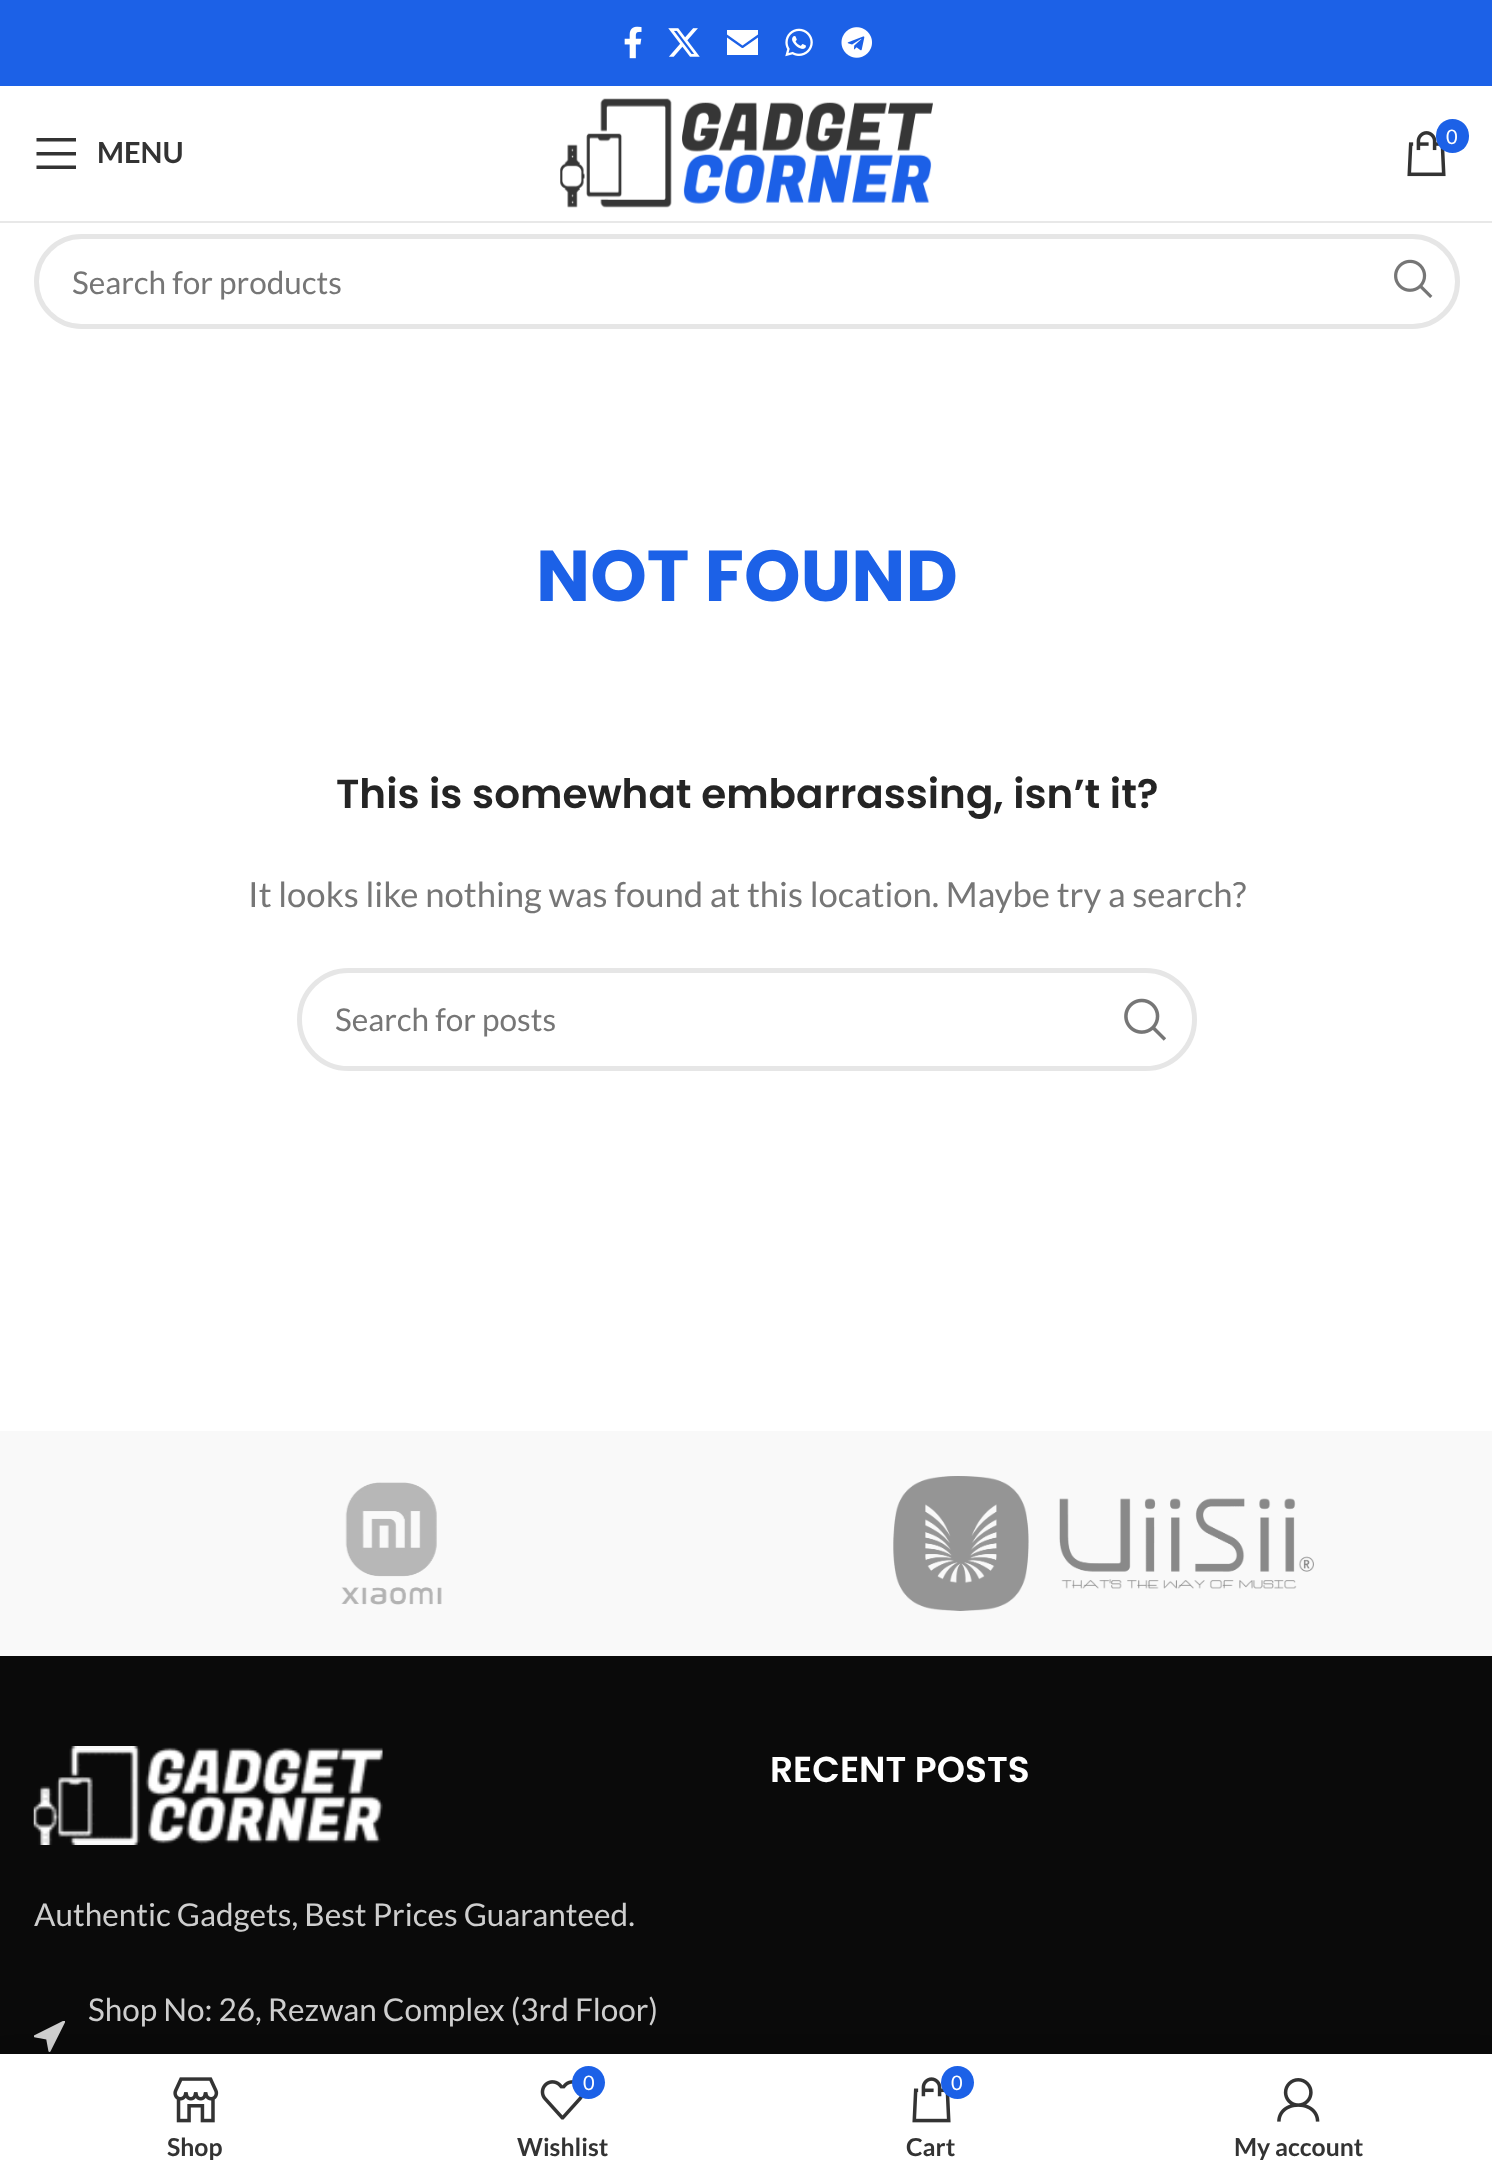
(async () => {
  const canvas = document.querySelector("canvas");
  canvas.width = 1492;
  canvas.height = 2176;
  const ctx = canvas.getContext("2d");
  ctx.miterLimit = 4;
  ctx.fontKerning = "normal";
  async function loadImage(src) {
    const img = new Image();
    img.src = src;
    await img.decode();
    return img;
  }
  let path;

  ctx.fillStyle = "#ffffff";
  ctx.fillRect(0, 0, 1492, 2176);
  ctx.fillStyle = "#1c61e7";
  ctx.fillRect(0, 0, 1492, 86);
  ctx.drawImage(await loadImage("img/1.png"), 624, 26, 18, 33);
  ctx.drawImage(await loadImage("img/2.png"), 668, 28, 32, 29);
  ctx.fillStyle = "#ffffff";
  path = new Path2D("M758 30H727V34.5L742.5 45.5L758 34.5ZM758 37.5L743 48H742L727 37.5V55H758Z");
  ctx.fill(path);
  ctx.drawImage(await loadImage("img/3.png"), 785, 28, 28, 29);
  ctx.drawImage(await loadImage("img/4.png"), 841, 27, 31, 31);
  ctx.fillStyle = "#e8e8e8";
  ctx.fillRect(0, 221, 1492, 2);
  ctx.drawImage(await loadImage("img/5.png"), 560, 98, 373, 110);
  ctx.drawImage(await loadImage("img/6.png"), 1407, 131, 39, 46);
  ctx.fillStyle = "#1c61e7";
  ctx.beginPath();
  ctx.roundRect(1436, 119, 33, 34, 16.5);
  ctx.fill();
  ctx.fillStyle = "#333333";
  path = new Path2D("M36.5 141.5H76V138H36.5ZM36.5 155.5H76V152H36.5ZM36.5 169H76V165.5H36.5Z");
  ctx.fill(path);
  ctx.beginPath();
  ctx.roundRect(36.5, 236.5, 1421, 90, 45);
  ctx.strokeStyle = "#e6e6e6";
  ctx.lineWidth = 5;
  ctx.stroke();
  ctx.drawImage(await loadImage("img/7.png"), 1394, 259, 39, 39);
  ctx.beginPath();
  ctx.roundRect(299.5, 970.5, 895, 98, 49);
  ctx.stroke();
  ctx.drawImage(await loadImage("img/8.png"), 1124, 998, 42, 43);
  ctx.fillStyle = "#f9f9f9";
  ctx.fillRect(0, 1431, 1492, 225);
  ctx.drawImage(await loadImage("img/9.png"), 341, 1482, 101, 123);
  ctx.drawImage(await loadImage("img/10.png"), 893, 1476, 421, 135);
  ctx.fillStyle = "#0a0a0a";
  ctx.fillRect(0, 1656, 1492, 398);
  ctx.drawImage(await loadImage("img/11.png"), 33, 1746, 350, 99);
  ctx.drawImage(await loadImage("img/12.png"), 34, 2021, 31, 31);
  ctx.fillStyle = "rgba(0, 0, 0, 0.12)";
  ctx.filter = "blur(10px)";
  ctx.beginPath();
  ctx.rect(0, 2054, 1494, 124);
  ctx.fill();
  ctx.filter = "none";
  ctx.fillStyle = "#ffffff";
  ctx.fillRect(0, 2054, 1492, 122);
  ctx.drawImage(await loadImage("img/13.png"), 173, 2077, 46, 46);
  ctx.drawImage(await loadImage("img/14.png"), 540, 2080, 43, 40);
  ctx.fillStyle = "#1c61e7";
  ctx.beginPath();
  ctx.arc(588.5, 2082.5, 16.5, 0, Math.PI * 2);
  ctx.fill();
  ctx.drawImage(await loadImage("img/15.png"), 912, 2077, 39, 46);
  ctx.beginPath();
  ctx.arc(957.5, 2082.5, 16.5, 0, Math.PI * 2);
  ctx.fill();
  ctx.drawImage(await loadImage("img/16.png"), 1277, 2078, 43, 44);
  ctx.font = "20px Lato";
  ctx.fillStyle = "#ffffff";
  ctx.fillText("0", 1446, 144);
  ctx.font = "bold 29px Lato";
  ctx.fillStyle = "#333333";
  ctx.fillText("MENU", 97, 163);
  ctx.font = "31.5px Lato";
  ctx.fillStyle = "#767676";
  ctx.fillText("Search for products", 72, 294);
  ctx.font = "bold 72px Poppins";
  ctx.fillStyle = "#1c61e7";
  ctx.fillText("NOT FOUND", 536, 601);
  ctx.font = "600 40.5px Poppins";
  ctx.fillStyle = "#242424";
  ctx.fillText("This is somewhat embarrassing, isn’t it?", 336, 808);
  ctx.font = "34.65px Lato";
  ctx.fillStyle = "#767676";
  ctx.fillText("It looks like nothing was found at this location. Maybe try a search?", 248, 907);
  ctx.font = "31.5px Lato";
  ctx.fillText("Search for posts", 335, 1031);
  ctx.font = "600 36px Poppins";
  ctx.fillStyle = "#ffffff";
  ctx.fillText("RECENT POSTS", 770, 1782);
  ctx.font = "31.5px Lato";
  ctx.fillStyle = "#cecece";
  ctx.fillText("Authentic Gadgets, Best Prices Guaranteed.", 34, 1926);
  ctx.fillText("Shop No: 26, Rezwan Complex (3rd Floor)", 88, 2021);
  ctx.save();
  ctx.beginPath();
  ctx.rect(34, 2131, 324, 29);
  ctx.clip();
  ctx.font = "bold 24.75px Lato";
  ctx.fillStyle = "#333333";
  ctx.fillText("Shop", 167, 2156);
  ctx.restore();
  ctx.font = "20px Lato";
  ctx.fillStyle = "#ffffff";
  ctx.fillText("0", 583, 2090);
  ctx.font = "bold 24.75px Lato";
  ctx.fillStyle = "#333333";
  ctx.fillText("Wishlist", 517, 2156);
  ctx.font = "20px Lato";
  ctx.fillStyle = "#ffffff";
  ctx.fillText("0", 951, 2090);
  ctx.font = "bold 24.75px Lato";
  ctx.fillStyle = "#333333";
  ctx.fillText("Cart", 906, 2156);
  ctx.save();
  ctx.beginPath();
  ctx.rect(1139, 2131, 321, 29);
  ctx.clip();
  ctx.fillText("My account", 1234, 2156);
  ctx.restore();
})();
